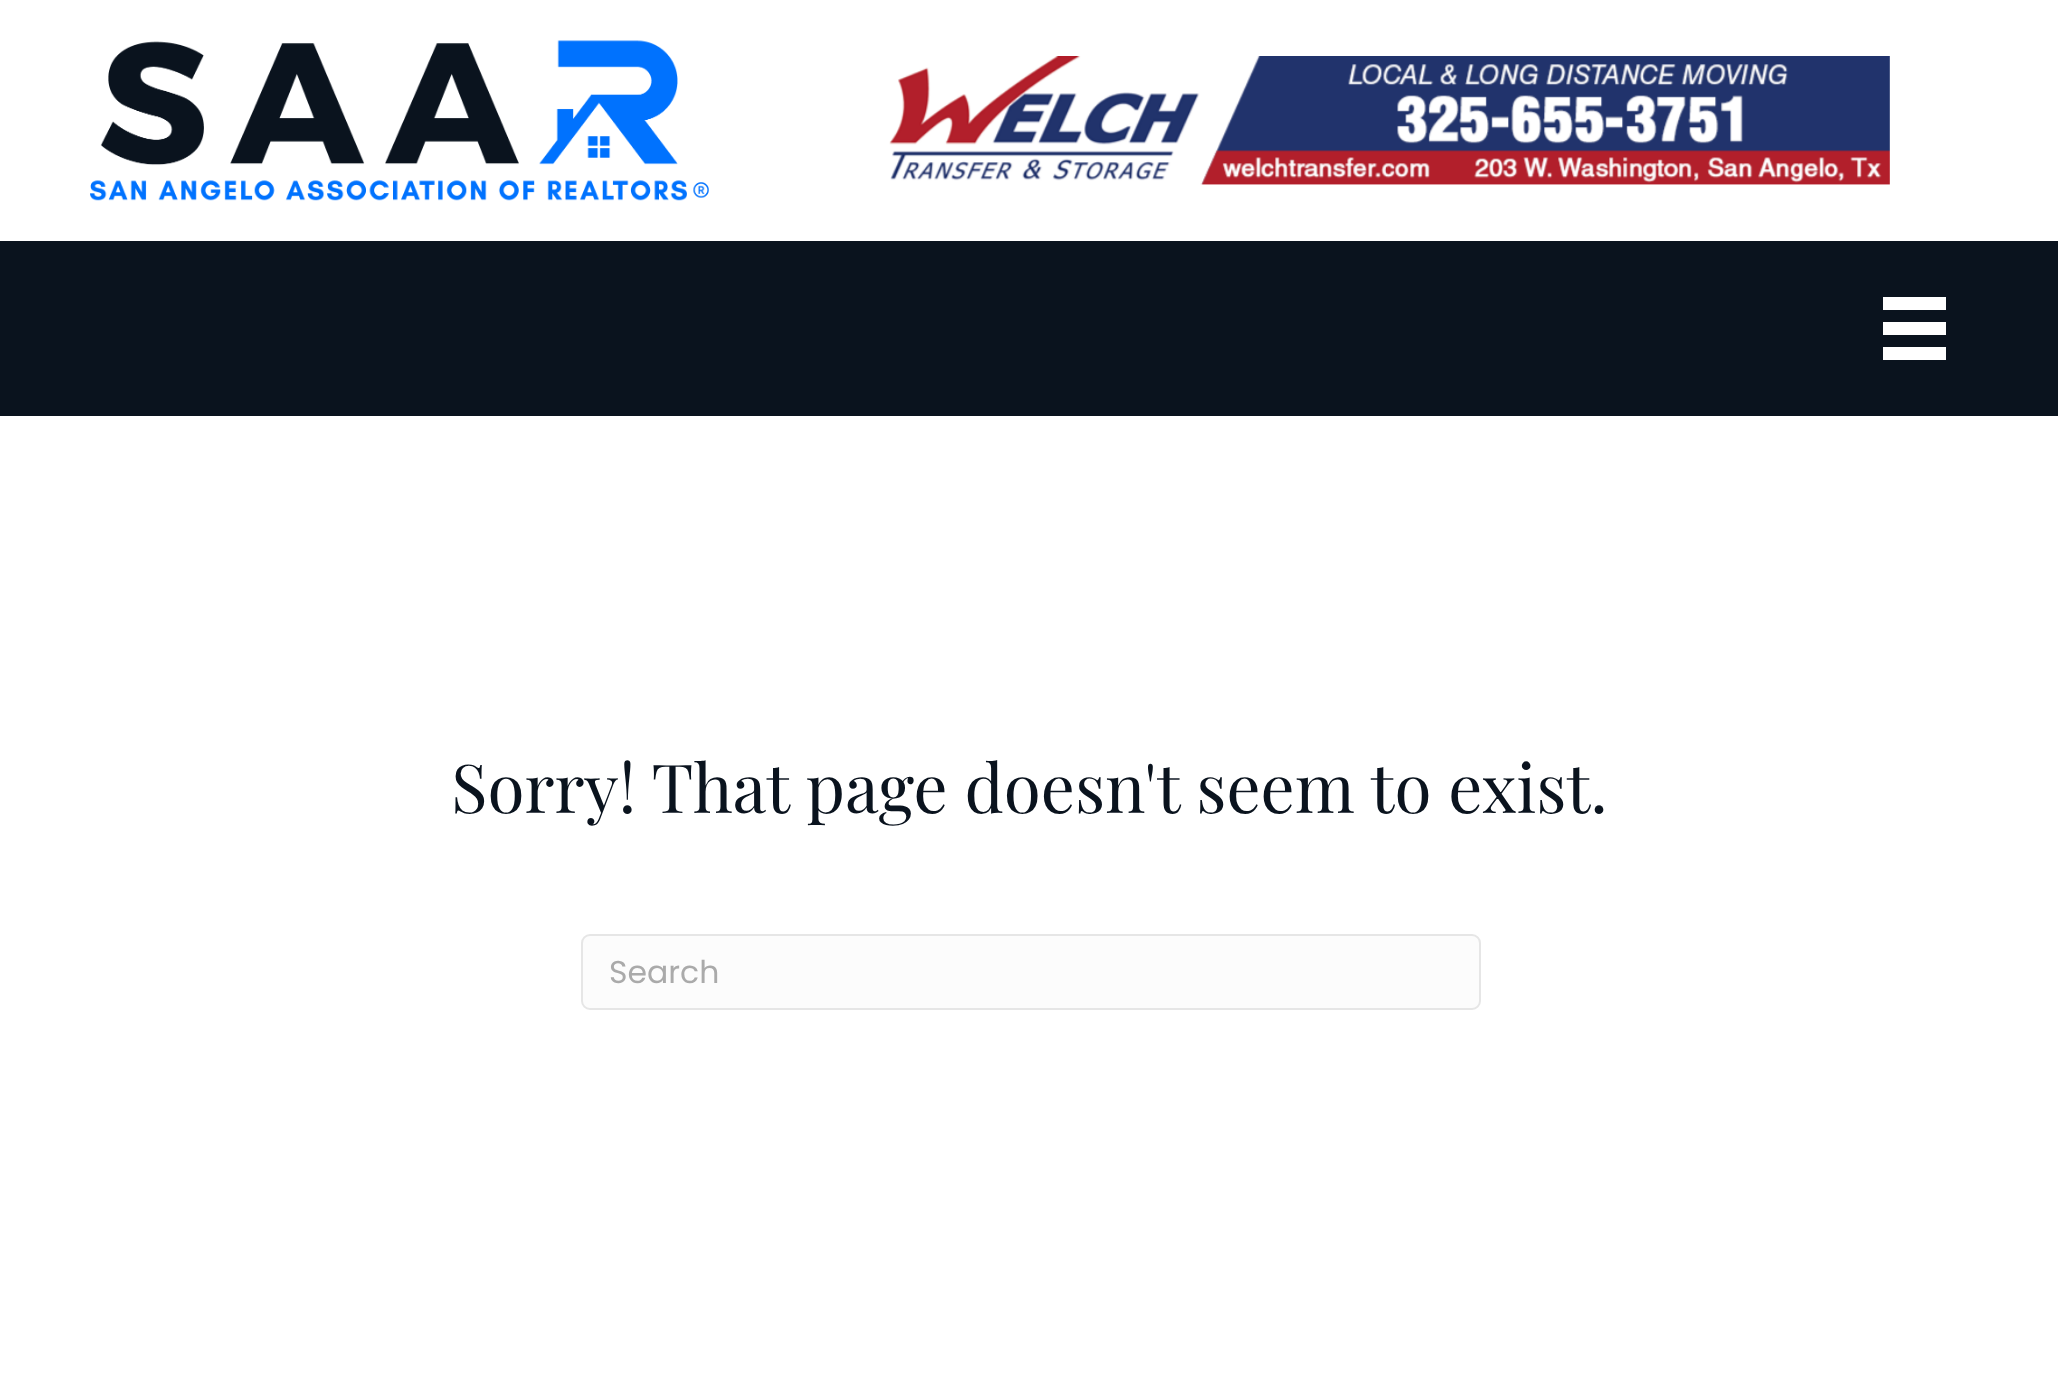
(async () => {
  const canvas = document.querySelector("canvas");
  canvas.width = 2058;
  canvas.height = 1395;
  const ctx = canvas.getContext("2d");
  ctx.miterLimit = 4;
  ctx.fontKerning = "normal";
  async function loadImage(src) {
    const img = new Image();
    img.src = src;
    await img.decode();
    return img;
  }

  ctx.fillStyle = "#ffffff";
  ctx.fillRect(0, 0, 2058, 1395);
  ctx.drawImage(await loadImage("img/1.png"), 90, 40, 619, 161);
  ctx.drawImage(await loadImage("img/2.png"), 889, 56, 1001, 129);
  for (const [x, y, w, h, color] of [
    [0, 241, 2058, 175, "#0a131e"],
    [1883, 297, 63, 13, "#ffffff"],
    [1883, 322, 63, 13, "#ffffff"],
    [1883, 347, 63, 13, "#ffffff"],
  ]) {
    ctx.fillStyle = color;
    ctx.fillRect(x, y, w, h);
  }
  ctx.fillStyle = "#fcfcfc";
  ctx.beginPath();
  ctx.roundRect(582, 935, 898, 74, 8);
  ctx.fill();
  ctx.strokeStyle = "#e6e6e6";
  ctx.lineWidth = 2;
  ctx.stroke();
  ctx.font = "67.5px Playfair Display";
  ctx.fillStyle = "#0a131e";
  ctx.fillText("Sorry! That page doesn't seem to exist.", 451, 813);
  ctx.font = "31.5px Poppins";
  ctx.fillStyle = "#aaaaaa";
  ctx.fillText("Search", 609, 983);
})();
